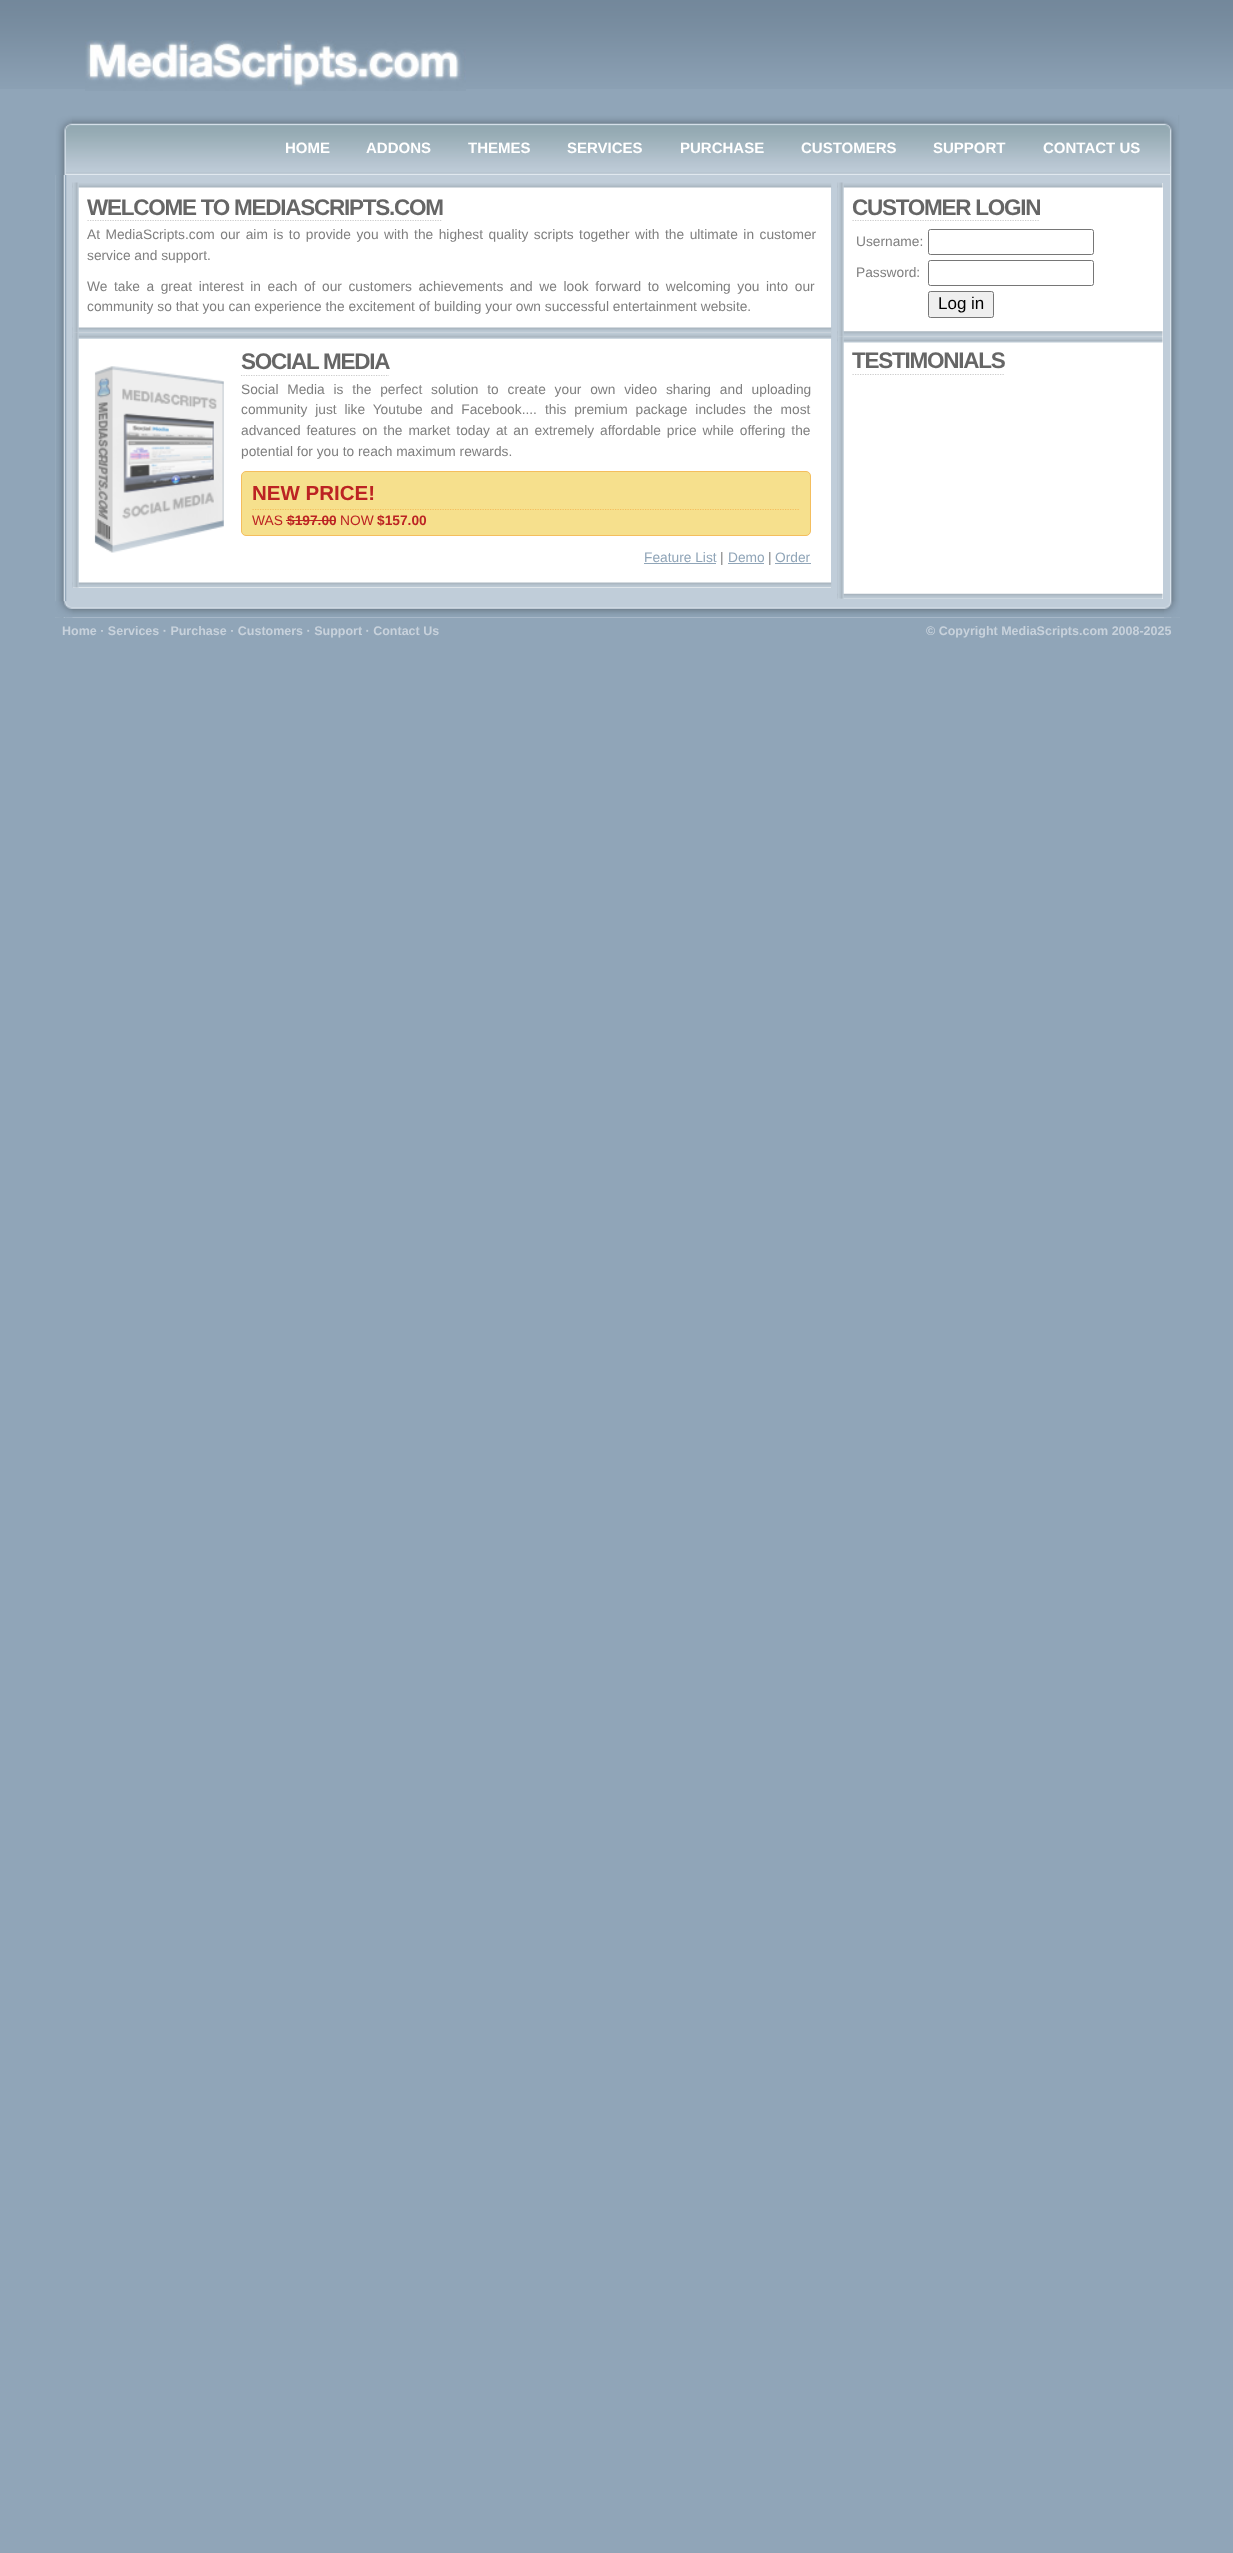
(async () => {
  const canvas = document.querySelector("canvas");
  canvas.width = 1233;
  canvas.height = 2553;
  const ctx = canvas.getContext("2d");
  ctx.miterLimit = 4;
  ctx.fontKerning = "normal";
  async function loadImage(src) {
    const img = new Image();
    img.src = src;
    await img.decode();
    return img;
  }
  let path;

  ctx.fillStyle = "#90a5b8";
  ctx.fillRect(0, 0, 1233, 2553);
  ctx.drawImage(await loadImage("img/1.png"), 0, 0, 1233, 89);
  ctx.drawImage(await loadImage("img/2.png"), 85, 40, 381, 51);
  ctx.fillStyle = "#c0cdd9";
  ctx.fillRect(55, 175, 1125, 443);
  ctx.drawImage(await loadImage("img/3.png"), 72, 115, 1098, 60);
  ctx.drawImage(await loadImage("img/4.png"), 1170, 115, 10, 503);
  ctx.drawImage(await loadImage("img/5.png"), 55, 607, 1125, 11);
  ctx.drawImage(await loadImage("img/6.png"), 55, 175, 12, 443);
  ctx.drawImage(await loadImage("img/7.png"), 55, 115, 17, 60);
  ctx.drawImage(await loadImage("img/8.png"), 1164, 115, 14, 51);
  ctx.drawImage(await loadImage("img/9.png"), 1164, 601, 16, 17);
  ctx.drawImage(await loadImage("img/10.png"), 55, 601, 18, 17);
  ctx.fillStyle = "#ffffff";
  ctx.fillRect(73, 187, 758, 146);
  ctx.drawImage(await loadImage("img/11.png"), 72, 183, 760, 5);
  ctx.drawImage(await loadImage("img/12.png"), 72, 327, 760, 6);
  ctx.drawImage(await loadImage("img/13.png"), 72, 182, 7, 151);
  path = new Path2D("M87.5 220.5H442.5");
  ctx.strokeStyle = "#cccccc";
  ctx.lineWidth = 1.2;
  ctx.setLineDash([1.25, 1.25]);
  ctx.stroke(path);
  ctx.fillRect(73, 338, 758, 250);
  ctx.drawImage(await loadImage("img/14.png"), 72, 332, 760, 7);
  ctx.drawImage(await loadImage("img/12.png"), 72, 582, 760, 6);
  ctx.drawImage(await loadImage("img/15.png"), 72, 332, 7, 256);
  ctx.drawImage(await loadImage("img/16.png"), 94, 366, 130, 187);
  path = new Path2D("M241 375.5H389");
  ctx.stroke(path);
  ctx.fillStyle = "#f6e08d";
  ctx.beginPath();
  ctx.roundRect(241.5, 471.5, 569, 64, 4.5);
  ctx.fill();
  ctx.strokeStyle = "#f4be5e";
  ctx.lineWidth = 1;
  ctx.setLineDash([]);
  ctx.stroke();
  path = new Path2D("M252.5 509.5H800");
  ctx.lineWidth = 1.2;
  ctx.setLineDash([1.25, 1.25]);
  ctx.stroke(path);
  for (const [x, y, w, h, color] of [
    [286, 520, 50, 1, "#bc2323"],
    [644, 563, 72, 1, "#90a5b8"],
    [728, 563, 36, 1, "#90a5b8"],
    [775, 563, 36, 1, "#90a5b8"],
    [843, 183, 320, 153, "#ffffff"],
  ]) {
    ctx.fillStyle = color;
    ctx.fillRect(x, y, w, h);
  }
  ctx.drawImage(await loadImage("img/17.png"), 837, 183, 326, 5);
  ctx.drawImage(await loadImage("img/18.png"), 837, 331, 326, 5);
  ctx.drawImage(await loadImage("img/19.png"), 837, 182, 7, 155);
  path = new Path2D("M852.5 220.5H1040");
  ctx.strokeStyle = "#cccccc";
  ctx.stroke(path);
  ctx.beginPath();
  ctx.roundRect(928.5, 229.5, 165, 25, 2);
  ctx.strokeStyle = "#767676";
  ctx.lineWidth = 1;
  ctx.setLineDash([]);
  ctx.stroke();
  ctx.beginPath();
  ctx.roundRect(928.5, 260.5, 165, 25, 2);
  ctx.stroke();
  ctx.fillStyle = "#efefef";
  ctx.beginPath();
  ctx.roundRect(928.5, 291.5, 65, 26, 2);
  ctx.fill();
  ctx.stroke();
  ctx.fillStyle = "#ffffff";
  ctx.fillRect(838, 336, 325, 263);
  ctx.drawImage(await loadImage("img/20.png"), 837, 336, 326, 7);
  ctx.drawImage(await loadImage("img/21.png"), 837, 593, 326, 6);
  ctx.drawImage(await loadImage("img/22.png"), 837, 336, 7, 263);
  path = new Path2D("M852.5 374.5H1005");
  ctx.strokeStyle = "#cccccc";
  ctx.lineWidth = 1.2;
  ctx.setLineDash([1.25, 1.25]);
  ctx.stroke(path);
  ctx.font = "bold 15px Liberation Sans";
  for (const [text, x, y] of [
    ["HOME", 285, 153],
    ["ADDONS", 366, 153],
    ["THEMES", 468, 153],
    ["SERVICES", 567, 153],
    ["PURCHASE", 680, 153],
    ["CUSTOMERS", 801, 153],
    ["SUPPORT", 933, 153],
    ["CONTACT US", 1043, 153],
  ]) {
    ctx.fillText(text, x, y);
  }
  ctx.letterSpacing = "-1.25px";
  ctx.font = "bold 22.5px Liberation Sans";
  ctx.fillStyle = "#666666";
  ctx.fillText("WELCOME TO MEDIASCRIPTS.COM", 87, 215);
  ctx.letterSpacing = "0px";
  ctx.wordSpacing = "1.7px";
  ctx.font = "13.75px Liberation Sans";
  ctx.fillStyle = "#7f7f7f";
  ctx.fillText("At MediaScripts.com our aim is to provide you with the highest quality scripts together with the ultimate in customer", 87, 239);
  ctx.wordSpacing = "0px";
  ctx.fillText("service and support.", 87, 260);
  ctx.wordSpacing = "2.75px";
  ctx.fillText("We take a great interest in each of our customers achievements and we look forward to welcoming you into our", 87, 291);
  ctx.wordSpacing = "0px";
  ctx.fillText("community so that you can experience the excitement of building your own successful entertainment website.", 87, 311);
  ctx.letterSpacing = "-1.25px";
  ctx.font = "bold 22.5px Liberation Sans";
  ctx.fillStyle = "#666666";
  ctx.fillText("SOCIAL MEDIA", 241, 369);
  ctx.letterSpacing = "0px";
  ctx.wordSpacing = "5px";
  ctx.font = "13.75px Liberation Sans";
  ctx.fillStyle = "#7f7f7f";
  ctx.fillText("Social Media is the perfect solution to create your own video sharing and uploading", 241, 394);
  ctx.wordSpacing = "4px";
  ctx.fillText("community just like Youtube and Facebook....", 241, 414);
  ctx.fillText("this premium package includes the most", 545, 414);
  ctx.wordSpacing = "2.1px";
  ctx.fillText("advanced features on the market today at an extremely affordable price while offering the", 241, 435);
  ctx.wordSpacing = "0px";
  ctx.fillText("potential for you to reach maximum rewards.", 241, 456);
  ctx.font = "bold 20.5px Liberation Sans";
  ctx.fillStyle = "#bc2323";
  ctx.fillText("NEW PRICE!", 252, 500);
  ctx.font = "13.75px Liberation Sans";
  ctx.fillText("WAS", 252, 525);
  ctx.font = "bold 13.75px Liberation Sans";
  ctx.fillText("$197.00", 287, 525);
  ctx.font = "13.75px Liberation Sans";
  ctx.fillText("NOW", 340, 525);
  ctx.font = "bold 13.75px Liberation Sans";
  ctx.fillText("$157.00", 377, 525);
  ctx.font = "13.75px Liberation Sans";
  ctx.fillStyle = "#90a5b8";
  ctx.fillText("Feature List", 644, 562);
  ctx.fillStyle = "#7f7f7f";
  ctx.fillText("|", 720, 562);
  ctx.fillStyle = "#90a5b8";
  ctx.fillText("Demo", 728, 562);
  ctx.fillStyle = "#7f7f7f";
  ctx.fillText("|", 768, 562);
  ctx.fillStyle = "#90a5b8";
  ctx.fillText("Order", 775, 562);
  ctx.letterSpacing = "-1.25px";
  ctx.font = "bold 22.5px Liberation Sans";
  ctx.fillStyle = "#666666";
  ctx.fillText("CUSTOMER LOGIN", 852, 215);
  ctx.letterSpacing = "0px";
  ctx.font = "13.75px Liberation Sans";
  ctx.fillStyle = "#7f7f7f";
  ctx.fillText("Username:", 856, 246);
  ctx.fillText("Password:", 856, 277);
  ctx.font = "17px Liberation Sans";
  ctx.fillStyle = "#000000";
  ctx.fillText("Log in", 938, 309);
  ctx.letterSpacing = "-1.25px";
  ctx.font = "bold 22.5px Liberation Sans";
  ctx.fillStyle = "#666666";
  ctx.fillText("TESTIMONIALS", 852, 368);
  ctx.letterSpacing = "0px";
  ctx.font = "bold 12.5px Liberation Sans";
  ctx.fillStyle = "#c8d2dc";
  ctx.fillText("Home · Services · Purchase · Customers · Support · Contact Us", 62, 635);
  ctx.fillText("© Copyright MediaScripts.com 2008-2025", 926, 635);
})();
